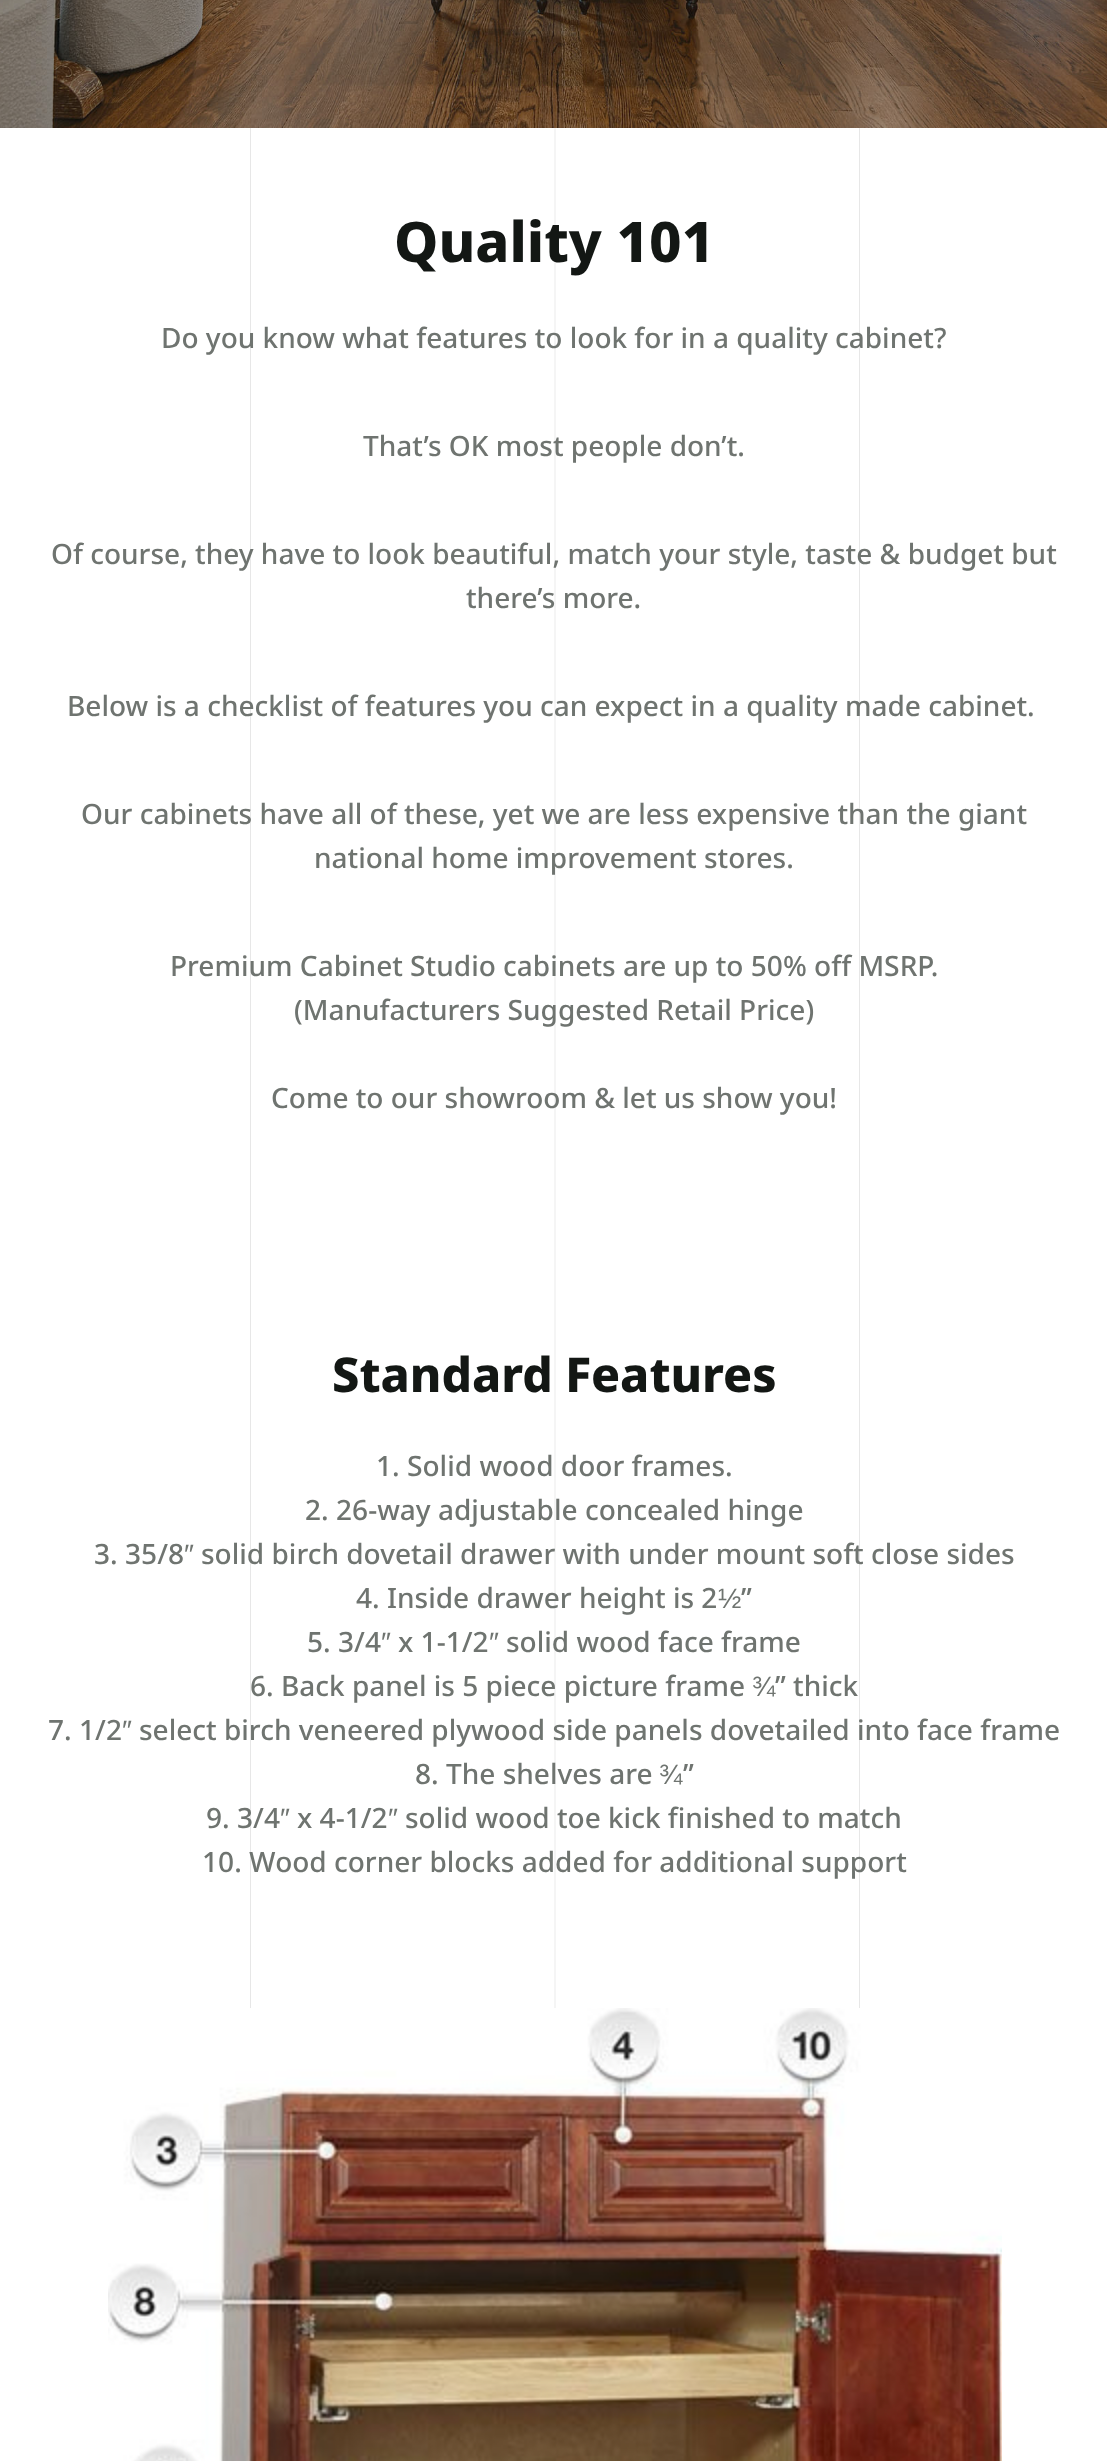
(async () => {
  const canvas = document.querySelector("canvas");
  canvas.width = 1107;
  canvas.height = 2461;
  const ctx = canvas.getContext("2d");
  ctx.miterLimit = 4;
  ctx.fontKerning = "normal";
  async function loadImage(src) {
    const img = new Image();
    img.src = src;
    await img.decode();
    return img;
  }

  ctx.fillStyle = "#ffffff";
  ctx.fillRect(0, 0, 1107, 2461);
  ctx.drawImage(await loadImage("img/1.png"), 0, 0, 1107, 128);
  ctx.drawImage(await loadImage("img/2.png"), 250, 128, 610, 1880);
  ctx.drawImage(await loadImage("img/3.png"), 108, 2008, 894, 453);
  ctx.font = "800 56px Noto Sans Georgian";
  ctx.fillStyle = "#131714";
  ctx.fillText("Quality 101", 394, 262);
  ctx.font = "500 28px Noto Sans Georgian";
  ctx.fillStyle = "#6f7470";
  for (const [text, x, y] of [
    ["Do you know what features to look for in a quality cabinet?", 161, 348],
    ["That’s OK most people don’t.", 363, 456],
    ["Of course, they have to look beautiful, match your style, taste & budget but", 51, 564],
    ["there’s more.", 466, 608],
    ["Below is a checklist of features you can expect in a quality made cabinet.", 67, 716],
    ["Our cabinets have all of these, yet we are less expensive than the giant", 81, 824],
    ["national home improvement stores.", 314, 868],
    ["Premium Cabinet Studio cabinets are up to 50% off MSRP.", 170, 976],
    ["(Manufacturers Suggested Retail Price)", 294, 1020],
    ["Come to our showroom & let us show you!", 271, 1108],
  ]) {
    ctx.fillText(text, x, y);
  }
  ctx.font = "800 48px Noto Sans Georgian";
  ctx.fillStyle = "#131714";
  ctx.fillText("Standard Features", 332, 1392);
  ctx.font = "500 28px Noto Sans Georgian";
  ctx.fillStyle = "#6f7470";
  for (const [text, x, y] of [
    ["1. Solid wood door frames.", 376, 1476],
    ["2. 26-way adjustable concealed hinge", 305, 1520],
    ["3. 35/8", 94, 1564],
  ]) {
    ctx.fillText(text, x, y);
  }
  ctx.font = "28px Liberation Sans";
  ctx.fillText("″", 184, 1564);
  ctx.font = "500 28px Noto Sans Georgian";
  ctx.fillText("solid birch dovetail drawer with under mount soft close sides", 201, 1564);
  ctx.fillText("4. Inside drawer height is 2", 356, 1608);
  ctx.font = "28px Liberation Sans";
  ctx.fillText("½", 718, 1608);
  ctx.font = "500 28px Noto Sans Georgian";
  ctx.fillText("”", 741, 1608);
  ctx.fillText("5. 3/4", 307, 1652);
  ctx.font = "28px Liberation Sans";
  ctx.fillText("″", 381, 1652);
  ctx.font = "500 28px Noto Sans Georgian";
  ctx.fillText("x 1-1/2", 398, 1652);
  ctx.font = "28px Liberation Sans";
  ctx.fillText("″", 489, 1652);
  ctx.font = "500 28px Noto Sans Georgian";
  ctx.fillText("solid wood face frame", 506, 1652);
  ctx.fillText("6. Back panel is 5 piece picture frame", 250, 1696);
  ctx.font = "28px Liberation Sans";
  ctx.fillText("¾", 752, 1696);
  ctx.font = "500 28px Noto Sans Georgian";
  ctx.fillText("” thick", 775, 1696);
  ctx.fillText("7. 1/2", 48, 1740);
  ctx.font = "28px Liberation Sans";
  ctx.fillText("″", 122, 1740);
  ctx.font = "500 28px Noto Sans Georgian";
  ctx.fillText("select birch veneered plywood side panels dovetailed into face frame", 139, 1740);
  ctx.fillText("8. The shelves are", 415, 1784);
  ctx.font = "28px Liberation Sans";
  ctx.fillText("¾", 659, 1784);
  ctx.font = "500 28px Noto Sans Georgian";
  ctx.fillText("”", 683, 1784);
  ctx.fillText("9. 3/4", 206, 1828);
  ctx.font = "28px Liberation Sans";
  ctx.fillText("″", 280, 1828);
  ctx.font = "500 28px Noto Sans Georgian";
  ctx.fillText("x 4-1/2", 297, 1828);
  ctx.font = "28px Liberation Sans";
  ctx.fillText("″", 388, 1828);
  ctx.font = "500 28px Noto Sans Georgian";
  ctx.fillText("solid wood toe kick finished to match", 405, 1828);
  ctx.fillText("10. Wood corner blocks added for additional support", 202, 1872);
})();
